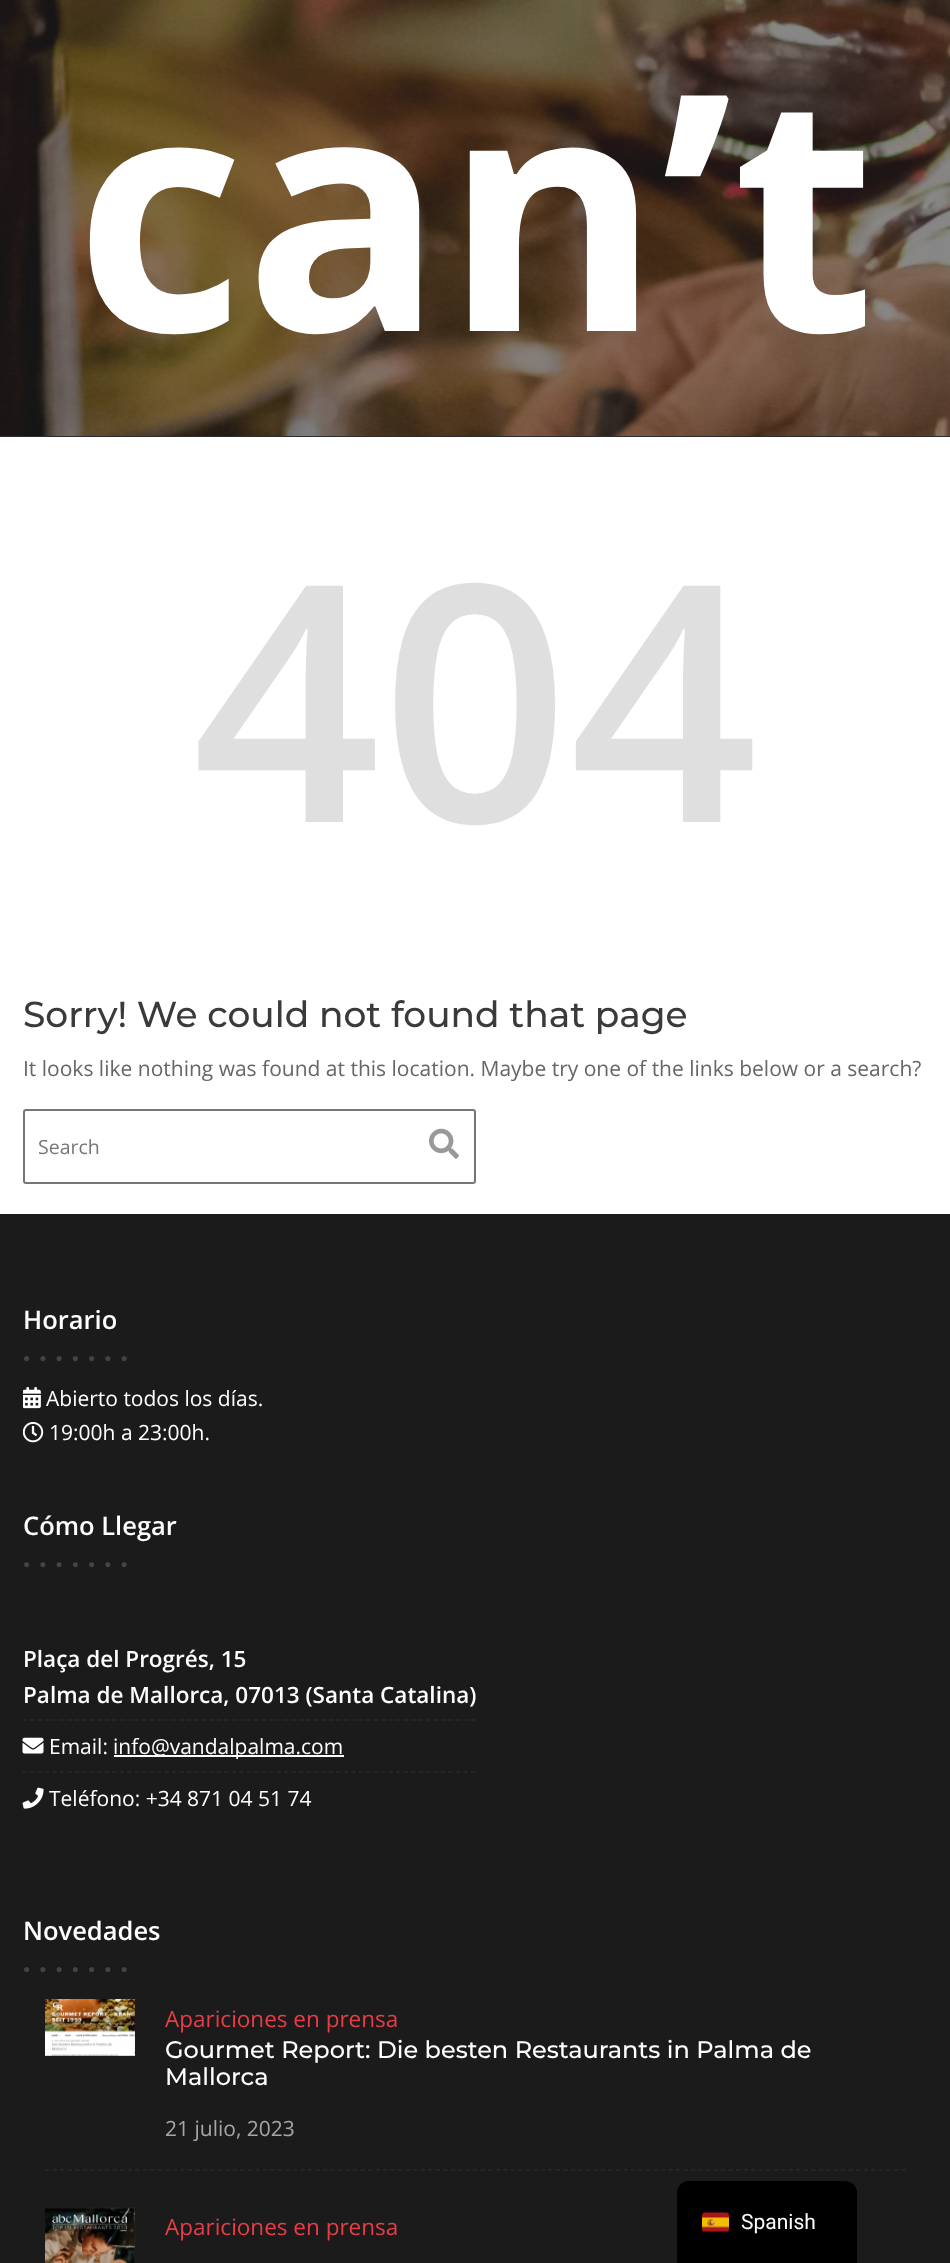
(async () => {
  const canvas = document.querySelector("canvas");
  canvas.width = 950;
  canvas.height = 2263;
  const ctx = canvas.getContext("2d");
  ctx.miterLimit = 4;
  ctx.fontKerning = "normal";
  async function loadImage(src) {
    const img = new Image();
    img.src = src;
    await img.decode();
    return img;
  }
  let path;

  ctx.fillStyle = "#ffffff";
  ctx.fillRect(0, 0, 950, 2263);
  ctx.fillStyle = "#2d2d2d";
  ctx.fillRect(0, 436, 950, 1);
  ctx.drawImage(await loadImage("img/1.png"), 0, 0, 950, 436);
  ctx.beginPath();
  ctx.roundRect(24, 1110, 451, 73, 2);
  ctx.strokeStyle = "#767676";
  ctx.lineWidth = 2;
  ctx.stroke();
  ctx.drawImage(await loadImage("img/2.png"), 429, 1128, 30, 31);
  ctx.fillStyle = "#1b1b1b";
  ctx.fillRect(0, 1214, 950, 1049);
  ctx.drawImage(await loadImage("img/3.png"), 23, 1387, 18, 22);
  ctx.drawImage(await loadImage("img/4.png"), 23, 1422, 21, 21);
  path = new Path2D("M22.5 1720H475.5");
  ctx.strokeStyle = "#2a2a29";
  ctx.lineWidth = 1.5;
  ctx.setLineDash([4.5, 2.97]);
  ctx.stroke(path);
  path = new Path2D("M22.5 1772H475.5");
  ctx.stroke(path);
  ctx.drawImage(await loadImage("img/5.png"), 22, 1737, 22, 17);
  ctx.fillStyle = "#ffffff";
  ctx.fillRect(114, 1755, 230, 2);
  ctx.drawImage(await loadImage("img/6.png"), 22, 1787, 22, 22);
  path = new Path2D("M45 2170H906");
  ctx.setLineDash([4.5, 3.01]);
  ctx.stroke(path);
  ctx.drawImage(await loadImage("img/7.png"), 45, 1999, 90, 57);
  ctx.drawImage(await loadImage("img/8.png"), 45, 2207, 90, 56);
  ctx.fillStyle = "#000000";
  path = new Path2D("M689 2181H845C851.5 2181 857 2186.5 857 2193V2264H677V2193C677 2186.5 682.5 2181 689 2181Z");
  ctx.fill(path);
  ctx.drawImage(await loadImage("img/9.png"), 702, 2212, 27, 21);
  ctx.font = "bold 330px Open Sans";
  ctx.fillStyle = "#ffffff";
  ctx.fillText("can’t", 75, 331);
  ctx.font = "600 330px Open Sans";
  ctx.fillStyle = "#dfdfdf";
  ctx.fillText("404", 192, 822);
  ctx.font = "500 36px Montserrat";
  ctx.fillStyle = "#3a3a3a";
  ctx.fillText("Sorry! We could not found that page", 23, 1027);
  ctx.font = "21px Open Sans";
  ctx.fillStyle = "#666666";
  ctx.fillText("It looks like nothing was found at this location. Maybe try one of the links below or a search?", 23, 1076);
  ctx.font = "19.5px Open Sans";
  ctx.fillStyle = "#757575";
  ctx.fillText("Search", 38, 1154);
  ctx.font = "600 25.5px Open Sans";
  ctx.fillStyle = "#ffffff";
  ctx.fillText("Horario", 23, 1329);
  ctx.letterSpacing = "9px";
  ctx.font = "bold 12px Liberation Sans";
  ctx.fillStyle = "#444444";
  ctx.fillText("●●●●●●●", 23, 1362);
  ctx.letterSpacing = "0px";
  ctx.font = "21px Open Sans";
  ctx.fillStyle = "#ffffff";
  ctx.fillText("Abierto todos los días.", 46, 1406);
  ctx.fillText("19:00h a 23:00h.", 49, 1440);
  ctx.font = "600 25.5px Open Sans";
  ctx.fillText("Cómo Llegar", 23, 1535);
  ctx.letterSpacing = "9px";
  ctx.font = "bold 12px Liberation Sans";
  ctx.fillStyle = "#444444";
  ctx.fillText("●●●●●●●", 23, 1568);
  ctx.letterSpacing = "0px";
  ctx.font = "600 22.5px Open Sans";
  ctx.fillStyle = "#ffffff";
  ctx.fillText("Plaça del Progrés, 15", 23, 1667);
  ctx.fillText("Palma de Mallorca, 07013 (Santa Catalina)", 23, 1703);
  ctx.font = "21px Open Sans";
  for (const [text, x, y] of [
    ["Email:", 49, 1754],
    ["info@vandalpalma.com", 113, 1754],
    ["Teléfono: +34 871 04 51 74", 49, 1806],
  ]) {
    ctx.fillText(text, x, y);
  }
  ctx.font = "600 25.5px Open Sans";
  ctx.fillText("Novedades", 23, 1940);
  ctx.letterSpacing = "9px";
  ctx.font = "bold 12px Liberation Sans";
  ctx.fillStyle = "#444444";
  ctx.fillText("●●●●●●●", 23, 1973);
  ctx.letterSpacing = "0px";
  ctx.font = "22.5px Open Sans";
  ctx.fillStyle = "#e83d47";
  ctx.fillText("Apariciones en prensa", 165, 2027);
  ctx.font = "500 24px Montserrat";
  ctx.fillStyle = "#ffffff";
  ctx.fillText("Gourmet Report: Die besten Restaurants in Palma de", 165, 2058);
  ctx.fillText("Mallorca", 165, 2085);
  ctx.font = "21px Open Sans";
  ctx.fillStyle = "#a6a6a6";
  ctx.fillText("21 julio, 2023", 165, 2136);
  ctx.font = "22.5px Open Sans";
  ctx.fillStyle = "#e83d47";
  ctx.fillText("Apariciones en prensa", 165, 2235);
  ctx.font = "21px Roboto";
  ctx.fillStyle = "#ffffff";
  ctx.fillText("Spanish", 741, 2229);
})();
